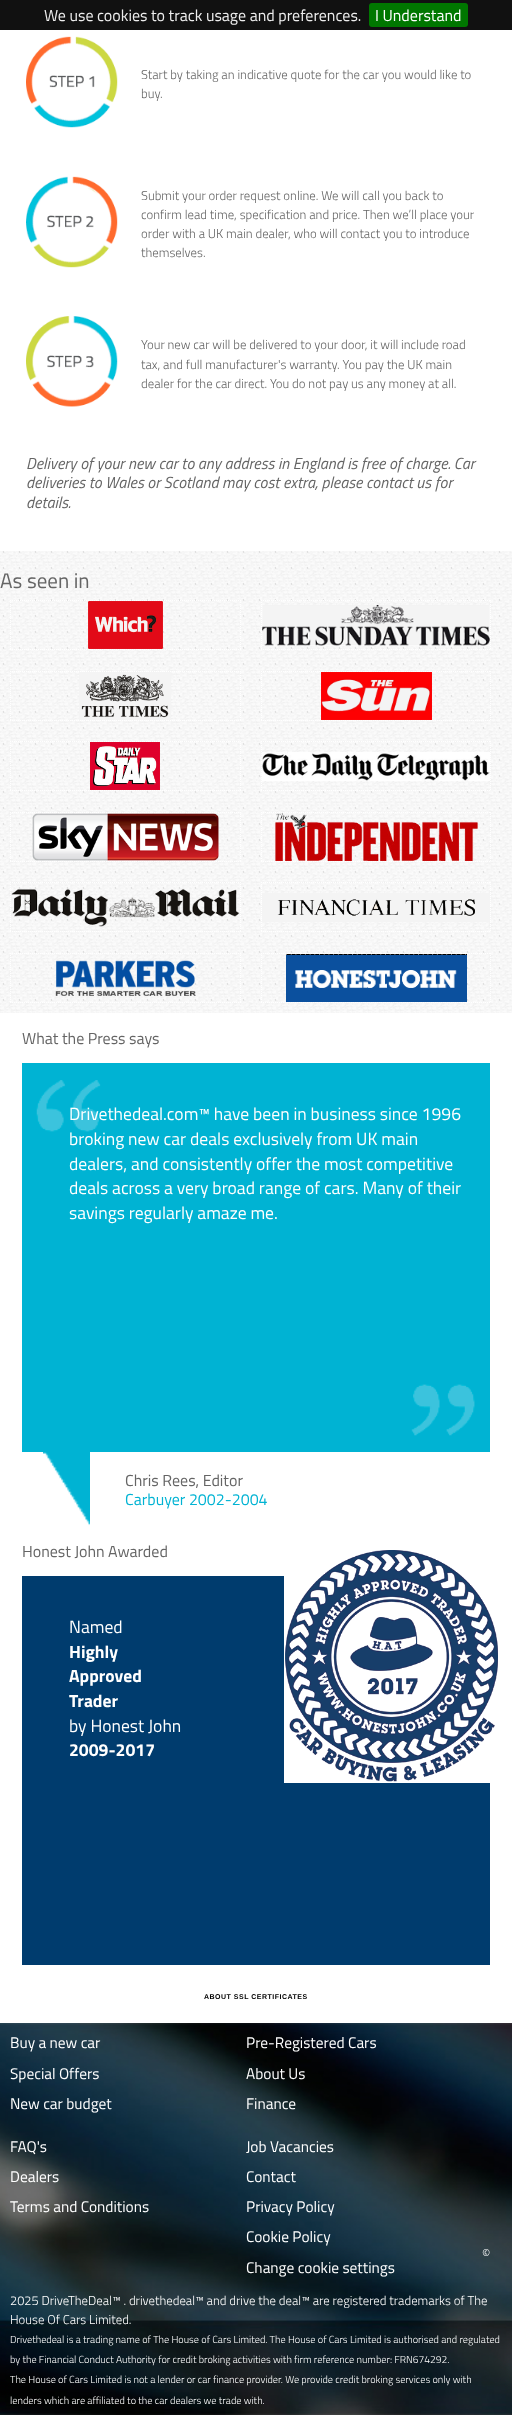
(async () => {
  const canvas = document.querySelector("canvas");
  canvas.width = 512;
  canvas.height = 2419;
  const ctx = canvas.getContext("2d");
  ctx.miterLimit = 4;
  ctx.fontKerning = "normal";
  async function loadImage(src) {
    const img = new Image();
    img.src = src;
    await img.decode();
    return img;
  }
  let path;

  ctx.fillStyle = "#ffffff";
  ctx.fillRect(0, 0, 512, 2419);
  ctx.fillStyle = "#111111";
  ctx.fillRect(0, 0, 512, 30);
  ctx.fillStyle = "#007700";
  ctx.beginPath();
  ctx.roundRect(369, 3, 99, 24, 3);
  ctx.fill();
  ctx.drawImage(await loadImage("img/1.png"), 26, 36, 92, 92);
  ctx.drawImage(await loadImage("img/2.png"), 26, 176, 92, 92);
  ctx.drawImage(await loadImage("img/3.png"), 26, 316, 92, 91);
  ctx.drawImage(await loadImage("img/4.png"), 0, 551, 512, 462);
  ctx.drawImage(await loadImage("img/5.png"), 88, 601, 75, 48);
  path = new Path2D("M10 600.5H241");
  ctx.strokeStyle = "#ffffff";
  ctx.setLineDash([1, 1]);
  ctx.stroke(path);
  path = new Path2D("M240.5 600V650");
  ctx.stroke(path);
  path = new Path2D("M10 649.5H241");
  ctx.stroke(path);
  path = new Path2D("M10.5 600V650");
  ctx.stroke(path);
  ctx.drawImage(await loadImage("img/6.png"), 262, 605, 228, 41);
  path = new Path2D("M261 600.5H491");
  ctx.stroke(path);
  path = new Path2D("M490.5 600V650");
  ctx.stroke(path);
  path = new Path2D("M261 649.5H491");
  ctx.stroke(path);
  path = new Path2D("M261.5 600V650");
  ctx.stroke(path);
  ctx.drawImage(await loadImage("img/7.png"), 79, 672, 92, 48);
  path = new Path2D("M10 671.5H241");
  ctx.stroke(path);
  path = new Path2D("M240.5 671V721");
  ctx.stroke(path);
  path = new Path2D("M10 720.5H241");
  ctx.stroke(path);
  path = new Path2D("M10.5 671V721");
  ctx.stroke(path);
  ctx.drawImage(await loadImage("img/8.png"), 321, 672, 111, 48);
  path = new Path2D("M261 671.5H491");
  ctx.stroke(path);
  path = new Path2D("M490.5 671V721");
  ctx.stroke(path);
  path = new Path2D("M261 720.5H491");
  ctx.stroke(path);
  path = new Path2D("M261.5 671V721");
  ctx.stroke(path);
  ctx.drawImage(await loadImage("img/9.png"), 90, 742, 70, 48);
  path = new Path2D("M10 741.5H241");
  ctx.stroke(path);
  path = new Path2D("M240.5 741V791");
  ctx.stroke(path);
  path = new Path2D("M10 790.5H241");
  ctx.stroke(path);
  path = new Path2D("M10.5 741V791");
  ctx.stroke(path);
  ctx.drawImage(await loadImage("img/10.png"), 262, 752, 228, 29);
  path = new Path2D("M261 741.5H491");
  ctx.stroke(path);
  path = new Path2D("M490.5 741V791");
  ctx.stroke(path);
  path = new Path2D("M261 790.5H491");
  ctx.stroke(path);
  path = new Path2D("M261.5 741V791");
  ctx.stroke(path);
  ctx.drawImage(await loadImage("img/11.png"), 32, 813, 187, 48);
  path = new Path2D("M10 812.5H241");
  ctx.stroke(path);
  path = new Path2D("M240.5 812V862");
  ctx.stroke(path);
  path = new Path2D("M10 861.5H241");
  ctx.stroke(path);
  path = new Path2D("M10.5 812V862");
  ctx.stroke(path);
  ctx.drawImage(await loadImage("img/12.png"), 275, 813, 203, 48);
  path = new Path2D("M261 812.5H491");
  ctx.stroke(path);
  path = new Path2D("M490.5 812V862");
  ctx.stroke(path);
  path = new Path2D("M261 861.5H491");
  ctx.stroke(path);
  path = new Path2D("M261.5 812V862");
  ctx.stroke(path);
  ctx.drawImage(await loadImage("img/13.png"), 11, 888, 229, 39);
  path = new Path2D("M10 882.5H241");
  ctx.stroke(path);
  path = new Path2D("M240.5 882V932");
  ctx.stroke(path);
  path = new Path2D("M10 931.5H241");
  ctx.stroke(path);
  path = new Path2D("M10.5 882V932");
  ctx.stroke(path);
  ctx.drawImage(await loadImage("img/14.png"), 262, 893, 228, 29);
  path = new Path2D("M261 882.5H491");
  ctx.stroke(path);
  path = new Path2D("M490.5 882V932");
  ctx.stroke(path);
  path = new Path2D("M261 931.5H491");
  ctx.stroke(path);
  path = new Path2D("M261.5 882V932");
  ctx.stroke(path);
  ctx.drawImage(await loadImage("img/15.png"), 55, 960, 141, 36);
  path = new Path2D("M10 953.5H241");
  ctx.stroke(path);
  path = new Path2D("M240.5 953V1003");
  ctx.stroke(path);
  path = new Path2D("M10 1002.5H241");
  ctx.stroke(path);
  path = new Path2D("M10.5 953V1003");
  ctx.stroke(path);
  ctx.drawImage(await loadImage("img/16.png"), 286, 954, 181, 48);
  path = new Path2D("M261 953.5H491");
  ctx.stroke(path);
  path = new Path2D("M490.5 953V1003");
  ctx.stroke(path);
  path = new Path2D("M261 1002.5H491");
  ctx.stroke(path);
  path = new Path2D("M261.5 953V1003");
  ctx.stroke(path);
  ctx.fillStyle = "#00b3d3";
  ctx.fillRect(22, 1063, 468, 389);
  ctx.drawImage(await loadImage("img/17.png"), 36, 1080, 65, 52);
  ctx.drawImage(await loadImage("img/18.png"), 411, 1384, 64, 52);
  ctx.drawImage(await loadImage("img/19.png"), 43, 1452, 47, 74);
  ctx.fillStyle = "#003c6e";
  ctx.fillRect(22, 1576, 468, 389);
  ctx.drawImage(await loadImage("img/20.png"), 284, 1550, 214, 233);
  ctx.drawImage(await loadImage("img/21.png"), 0, 2023, 512, 392);
  ctx.font = "16px Titillium Web";
  ctx.fillStyle = "#eeeeee";
  ctx.fillText("We use cookies to track usage and preferences.", 44, 21);
  ctx.fillStyle = "#ffffff";
  ctx.fillText("I Understand", 375, 21);
  ctx.font = "300 12.8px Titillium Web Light";
  ctx.fillStyle = "#656565";
  for (const [text, x, y] of [
    ["Start by taking an indicative quote for the car you would like to", 141, 79],
    ["buy.", 141, 98],
    ["Submit your order request online. We will call you back to", 141, 200],
    ["confirm lead time, specification and price. Then we’ll place your", 141, 219],
    ["order with a UK main dealer, who will contact you to introduce", 141, 238],
    ["themselves.", 141, 257],
    ["Your new car will be delivered to your door, it will include road", 141, 349],
    ["tax, and full manufacturer's warranty. You pay the UK main", 141, 369],
    ["dealer for the car direct. You do not pay us any money at all.", 141, 388],
  ]) {
    ctx.fillText(text, x, y);
  }
  ctx.font = "italic 16px Titillium Web";
  for (const [text, x, y] of [
    ["Delivery of your new car to any address in England is free of charge. Car", 26, 469],
    ["deliveries to Wales or Scotland may cost extra, please contact us for", 26, 488],
    ["details.", 26, 508],
  ]) {
    ctx.fillText(text, x, y);
  }
  ctx.font = "21px Titillium Web";
  ctx.fillText("As seen in", 0, 588);
  ctx.font = "16px Titillium Web";
  ctx.fillText("What the Press says", 22, 1044);
  ctx.font = "17.6px Titillium Web";
  ctx.fillStyle = "#ffffff";
  for (const [text, x, y] of [
    ["Drivethedeal.com™ have been in business since 1996", 69, 1120],
    ["broking new car deals exclusively from UK main", 69, 1145],
    ["dealers, and consistently offer the most competitive", 69, 1170],
    ["deals across a very broad range of cars. Many of their", 69, 1194],
    ["savings regularly amaze me.", 69, 1219],
  ]) {
    ctx.fillText(text, x, y);
  }
  ctx.font = "16px Titillium Web";
  ctx.fillStyle = "#656565";
  ctx.fillText("Chris Rees, Editor", 125, 1486);
  ctx.fillStyle = "#00b3d3";
  ctx.fillText("Carbuyer 2002-2004", 125, 1505);
  ctx.fillStyle = "#656565";
  ctx.fillText("Honest John Awarded", 22, 1557);
  ctx.font = "17.6px Titillium Web";
  ctx.fillStyle = "#ffffff";
  ctx.fillText("Named", 69, 1633);
  ctx.font = "bold 17.6px Titillium Web";
  for (const [text, x, y] of [
    ["Highly", 69, 1658],
    ["Approved", 69, 1682],
    ["Trader", 69, 1707],
  ]) {
    ctx.fillText(text, x, y);
  }
  ctx.font = "17.6px Titillium Web";
  ctx.fillText("by Honest John", 69, 1732);
  ctx.font = "bold 17.6px Titillium Web";
  ctx.fillText("2009-2017", 69, 1756);
  ctx.letterSpacing = "0.5px";
  ctx.font = "bold 7px Liberation Sans";
  ctx.fillStyle = "#000000";
  ctx.fillText("ABOUT SSL CERTIFICATES", 204, 1999);
  ctx.letterSpacing = "0px";
  ctx.font = "15.4px Titillium Web";
  ctx.fillStyle = "#ffffff";
  for (const [text, x, y] of [
    ["Buy a new car", 10, 2048],
    ["Special Offers", 10, 2079],
    ["New car budget", 10, 2109],
    ["Pre-Registered Cars", 246, 2048],
    ["About Us", 246, 2079],
    ["Finance", 246, 2109],
    ["FAQ's", 10, 2152],
    ["Dealers", 10, 2182],
    ["Terms and Conditions", 10, 2212],
    ["Job Vacancies", 246, 2152],
    ["Contact", 246, 2182],
    ["Privacy Policy", 246, 2212],
    ["Cookie Policy", 246, 2242],
    ["Change cookie settings", 246, 2273],
  ]) {
    ctx.fillText(text, x, y);
  }
  ctx.font = "300 12.8px Titillium Web Light";
  for (const [text, x, y] of [
    ["©", 482, 2258],
    ["2025 DriveTheDeal™ . drivethedeal™ and drive the deal™ are registered trademarks of The", 10, 2305],
    ["House Of Cars Limited.", 10, 2324],
  ]) {
    ctx.fillText(text, x, y);
  }
  ctx.font = "300 10.25px Titillium Web Light";
  for (const [text, x, y] of [
    ["Drivethedeal is a trading name of The House of Cars Limited. The House of Cars Limited is authorised and regulated", 10, 2343],
    ["by the Financial Conduct Authority for credit broking activities with firm reference number: FRN674292.", 10, 2363],
    ["The House of Cars Limited is not a lender or car finance provider. We provide credit broking services only with", 10, 2383],
    ["lenders which are affiliated to the car dealers we trade with.", 10, 2404],
  ]) {
    ctx.fillText(text, x, y);
  }
})();
